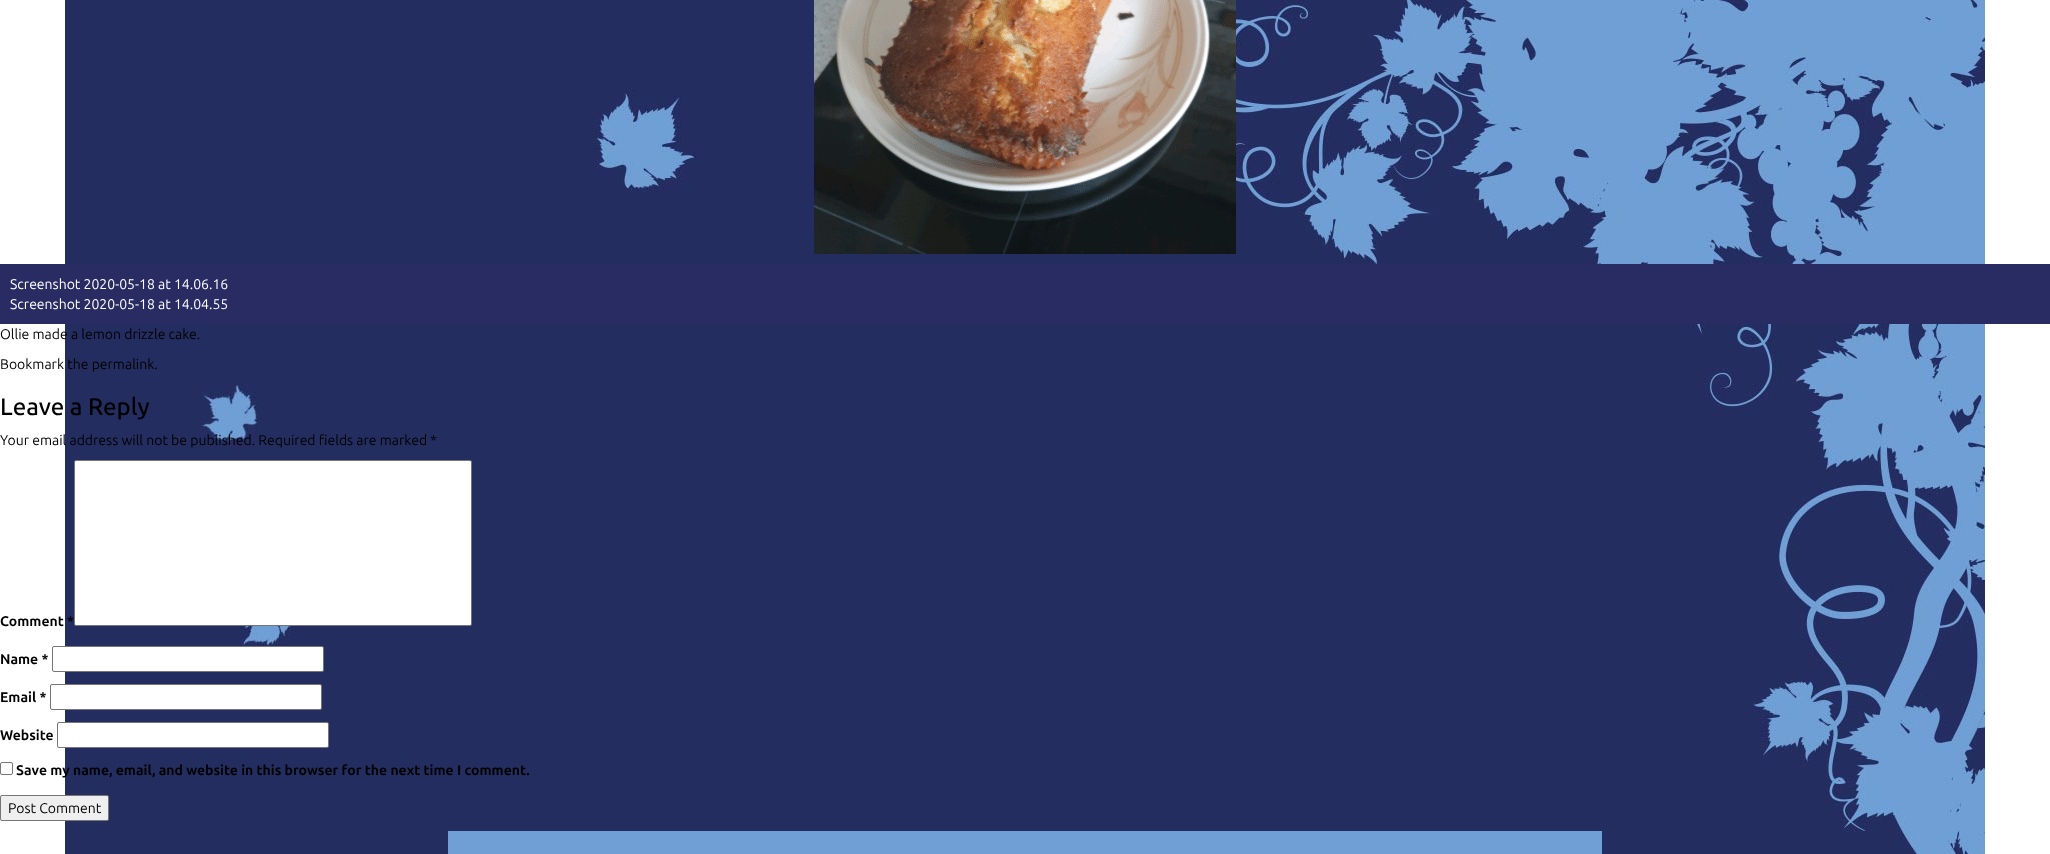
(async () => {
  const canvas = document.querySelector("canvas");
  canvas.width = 2050;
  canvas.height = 854;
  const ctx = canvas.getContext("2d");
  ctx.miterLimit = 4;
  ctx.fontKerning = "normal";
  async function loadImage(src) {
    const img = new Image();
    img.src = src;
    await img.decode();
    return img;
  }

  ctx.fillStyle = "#ffffff";
  ctx.fillRect(0, 0, 2050, 854);
  ctx.drawImage(await loadImage("img/1.png"), 65, 0, 1920, 854);
  ctx.drawImage(await loadImage("img/2.png"), 814, 0, 422, 254);
  ctx.fillStyle = "#282c63";
  ctx.fillRect(0, 264, 2050, 60);
  ctx.fillStyle = "#ffffff";
  ctx.beginPath();
  ctx.roundRect(74.5, 460.5, 397, 165, 1.5);
  ctx.fill();
  ctx.strokeStyle = "#767676";
  ctx.stroke();
  ctx.beginPath();
  ctx.roundRect(52.5, 646.5, 271, 25, 1.5);
  ctx.fill();
  ctx.stroke();
  ctx.beginPath();
  ctx.roundRect(50.5, 684.5, 271, 25, 1.5);
  ctx.fill();
  ctx.stroke();
  ctx.beginPath();
  ctx.roundRect(57.5, 722.5, 271, 25, 1.5);
  ctx.fill();
  ctx.stroke();
  ctx.beginPath();
  ctx.roundRect(0.5, 762.5, 12, 12, 1.5);
  ctx.stroke();
  ctx.fillStyle = "#efefef";
  ctx.beginPath();
  ctx.roundRect(0.5, 795.5, 108, 25, 1.5);
  ctx.fill();
  ctx.stroke();
  ctx.fillStyle = "#6f9fd5";
  ctx.fillRect(448, 831, 1154, 23);
  ctx.font = "14px Ubuntu";
  ctx.fillStyle = "#ffffff";
  ctx.fillText("Screenshot 2020-05-18 at 14.06.16", 10, 289);
  ctx.fillText("Screenshot 2020-05-18 at 14.04.55", 10, 309);
  ctx.fillStyle = "#000000";
  ctx.fillText("Ollie made a lemon drizzle cake.", 0, 339);
  ctx.fillText("Bookmark the permalink.", 0, 369);
  ctx.font = "500 24px Ubuntu";
  ctx.fillText("Leave a Reply", 0, 415);
  ctx.font = "14px Ubuntu";
  ctx.fillText("Your email address will not be published. Required fields are marked *", 0, 445);
  ctx.font = "bold 14px Ubuntu";
  for (const [text, x, y] of [
    ["Comment *", 0, 626],
    ["Name *", 0, 664],
    ["Email *", 0, 702],
    ["Website", 0, 740],
    ["Save my name, email, and website in this browser for the next time I comment.", 16, 775],
  ]) {
    ctx.fillText(text, x, y);
  }
  ctx.font = "14px Ubuntu";
  ctx.fillText("Post Comment", 8, 813);
})();
